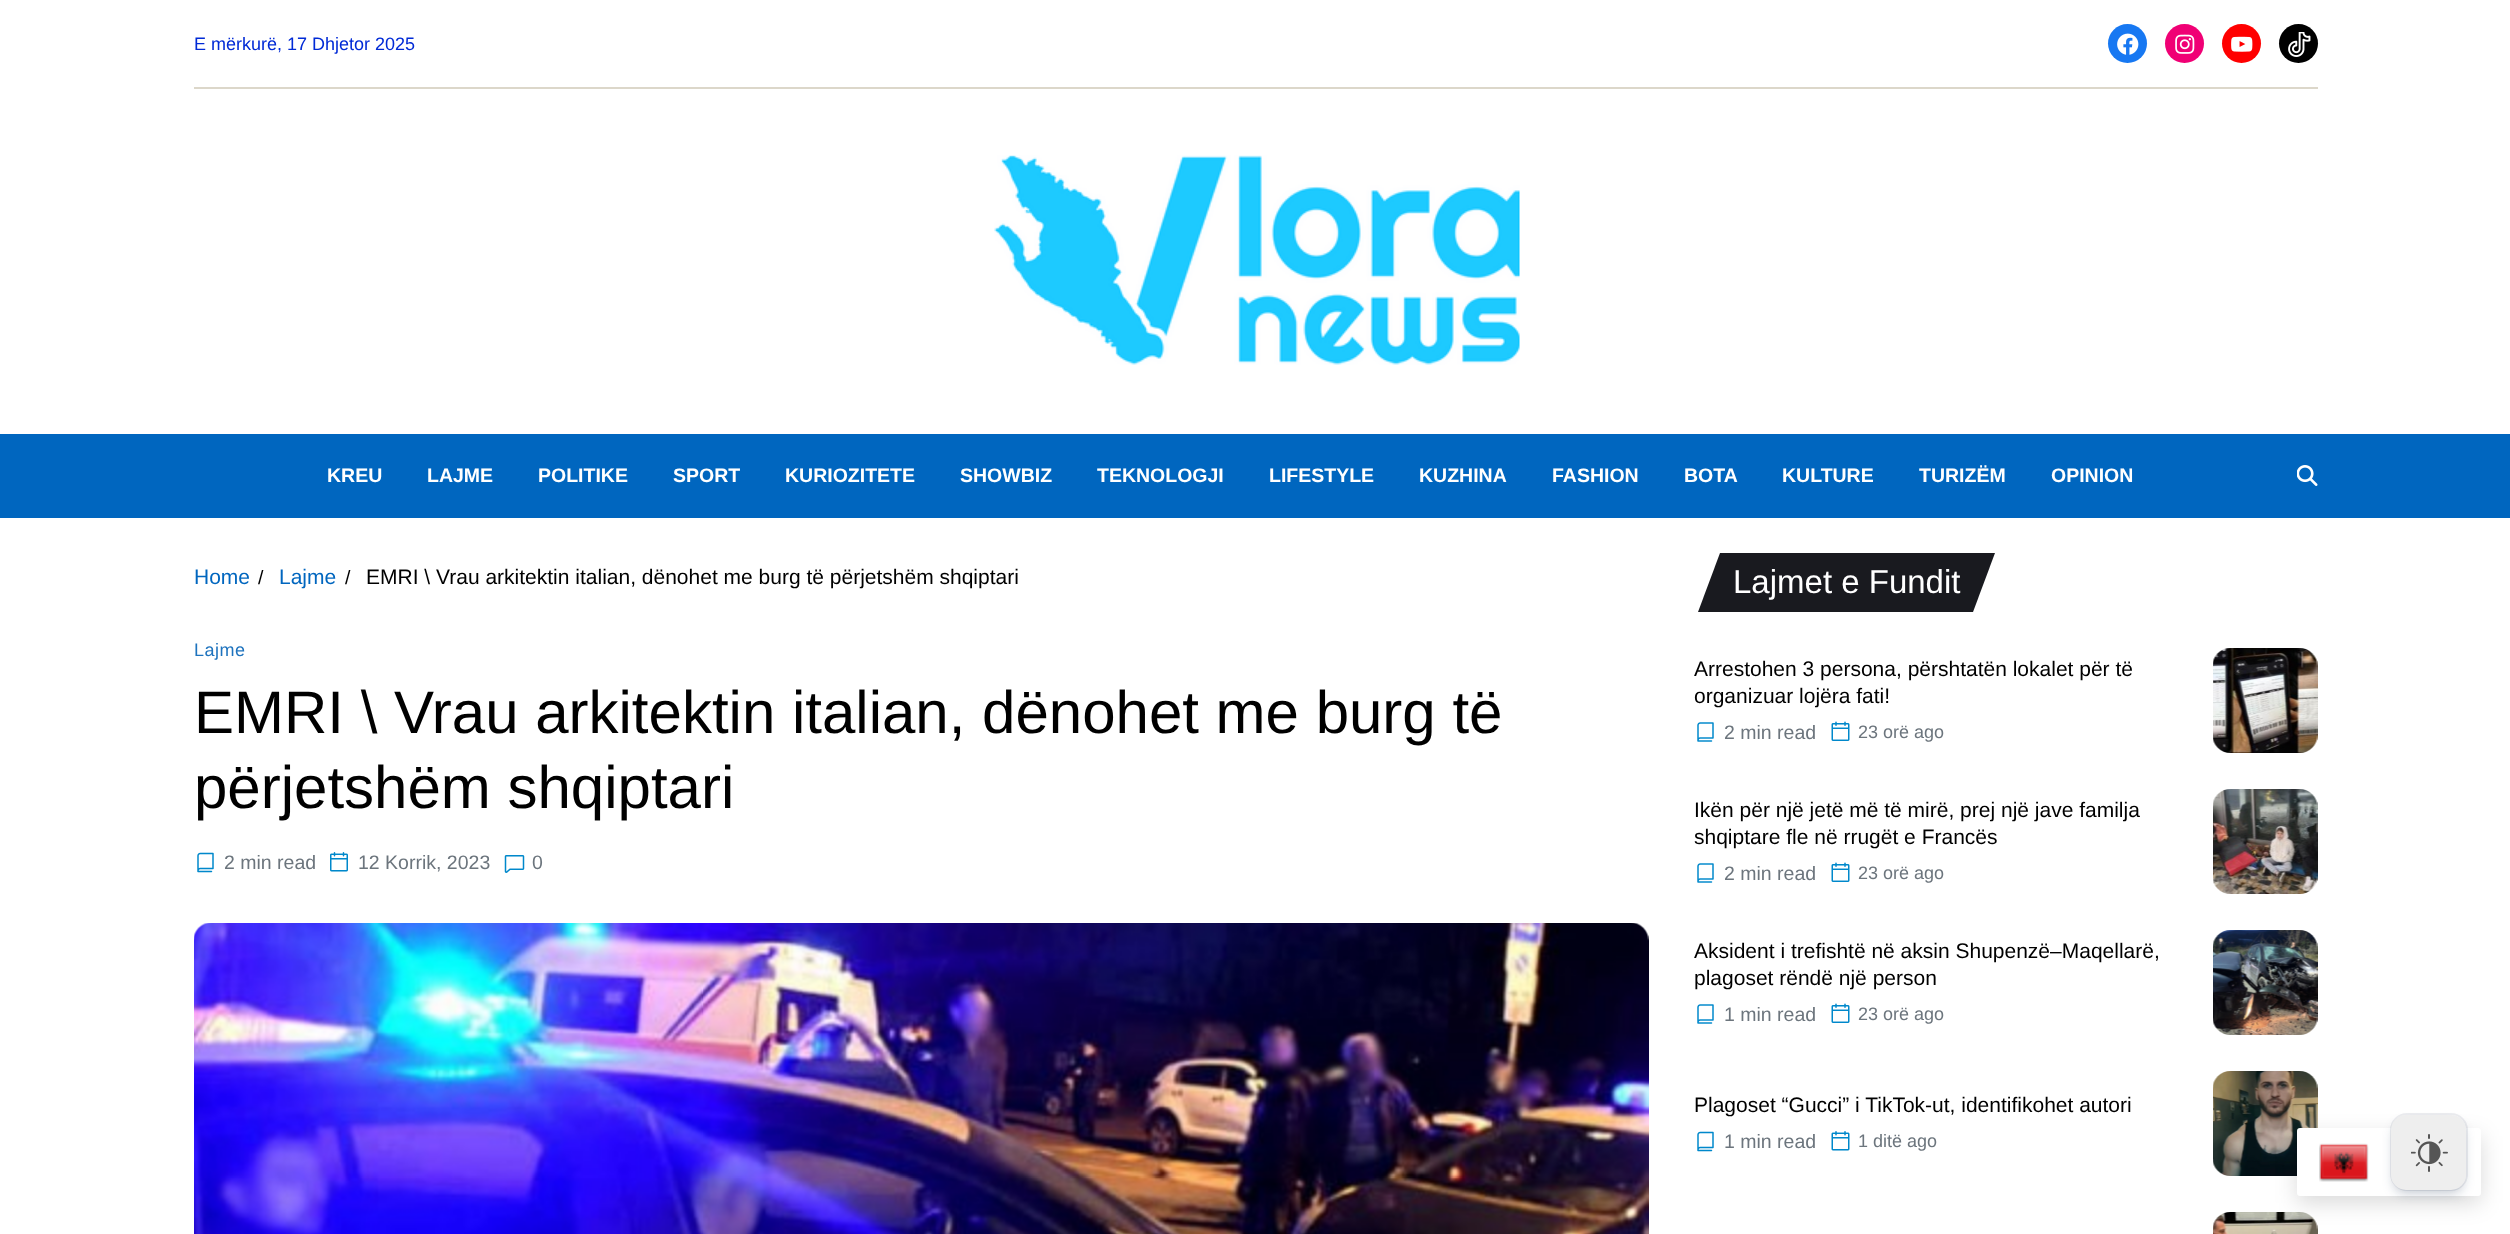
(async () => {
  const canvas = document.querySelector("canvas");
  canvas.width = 2510;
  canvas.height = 1234;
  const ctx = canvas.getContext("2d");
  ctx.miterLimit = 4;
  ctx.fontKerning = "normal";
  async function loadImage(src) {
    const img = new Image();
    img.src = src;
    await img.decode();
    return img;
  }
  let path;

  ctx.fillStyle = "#ffffff";
  ctx.fillRect(0, 0, 2510, 1234);
  ctx.fillStyle = "#dcd7ca";
  ctx.fillRect(194, 87, 2124, 2);
  ctx.fillStyle = "#1778f2";
  ctx.beginPath();
  ctx.arc(2127.5, 43.5, 19.5, 0, Math.PI * 2);
  ctx.fill();
  ctx.drawImage(await loadImage("img/1.png"), 2117, 33, 22, 22);
  ctx.fillStyle = "#f00075";
  ctx.beginPath();
  ctx.arc(2184.5, 43.5, 19.5, 0, Math.PI * 2);
  ctx.fill();
  ctx.drawImage(await loadImage("img/2.png"), 2175, 34, 20, 20);
  ctx.fillStyle = "#ff0000";
  ctx.beginPath();
  ctx.arc(2241.5, 43.5, 19.5, 0, Math.PI * 2);
  ctx.fill();
  ctx.drawImage(await loadImage("img/3.png"), 2231, 36, 22, 16);
  ctx.fillStyle = "#000000";
  ctx.beginPath();
  ctx.arc(2298.5, 43.5, 19.5, 0, Math.PI * 2);
  ctx.fill();
  ctx.drawImage(await loadImage("img/4.png"), 2288, 32, 23, 25);
  ctx.drawImage(await loadImage("img/5.png"), 994, 155, 526, 210);
  ctx.fillStyle = "#0066bf";
  ctx.fillRect(0, 434, 2510, 84);
  ctx.drawImage(await loadImage("img/6.png"), 2297, 465, 21, 21);
  ctx.drawImage(await loadImage("img/7.png"), 197, 852, 17, 21);
  ctx.drawImage(await loadImage("img/8.png"), 330, 852, 18, 20);
  ctx.drawImage(await loadImage("img/9.png"), 504, 855, 21, 18);
  ctx.drawImage(await loadImage("img/10.png"), 194, 923, 1455, 311);
  ctx.fillStyle = "#191a1f";
  path = new Path2D("M1720 553H1995L1973 612H1698Z");
  ctx.fill(path);
  ctx.drawImage(await loadImage("img/11.png"), 1697, 722, 17, 20);
  ctx.drawImage(await loadImage("img/12.png"), 1831, 721, 19, 20);
  ctx.drawImage(await loadImage("img/13.png"), 2213, 648, 105, 105);
  ctx.drawImage(await loadImage("img/11.png"), 1697, 863, 17, 20);
  ctx.drawImage(await loadImage("img/12.png"), 1831, 862, 19, 20);
  ctx.drawImage(await loadImage("img/14.png"), 2213, 789, 105, 105);
  ctx.drawImage(await loadImage("img/11.png"), 1697, 1004, 17, 20);
  ctx.drawImage(await loadImage("img/12.png"), 1831, 1003, 19, 20);
  ctx.drawImage(await loadImage("img/15.png"), 2213, 930, 105, 105);
  ctx.drawImage(await loadImage("img/7.png"), 1697, 1131, 17, 21);
  ctx.drawImage(await loadImage("img/16.png"), 1831, 1131, 19, 20);
  ctx.drawImage(await loadImage("img/17.png"), 2213, 1071, 105, 105);
  ctx.drawImage(await loadImage("img/18.png"), 2213, 1212, 105, 22);
  ctx.fillStyle = "rgba(0, 0, 0, 0.15)";
  ctx.filter = "blur(11px)";
  ctx.beginPath();
  ctx.roundRect(2297, 1136, 184, 67, 3);
  ctx.fill();
  ctx.filter = "none";
  ctx.fillStyle = "#ffffff";
  ctx.beginPath();
  ctx.roundRect(2297, 1128, 184, 68, 3);
  ctx.fill();
  ctx.drawImage(await loadImage("img/19.png"), 2319, 1143, 50, 39);
  ctx.beginPath();
  ctx.roundRect(2391, 1114, 76, 76, 16);
  ctx.strokeStyle = "rgba(9, 30, 66, 0.08)";
  ctx.lineWidth = 2;
  ctx.stroke();
  ctx.fillStyle = "rgba(9, 30, 66, 0.25)";
  ctx.filter = "blur(6px)";
  ctx.beginPath();
  ctx.roundRect(2394, 1124, 69, 69, 12);
  ctx.fill();
  ctx.filter = "none";
  ctx.fillStyle = "#eeeeee";
  ctx.beginPath();
  ctx.roundRect(2391, 1115, 75, 75, 15);
  ctx.fill();
  ctx.drawImage(await loadImage("img/20.png"), 2411, 1134, 37, 38);
  ctx.font = "18px Liberation Sans";
  ctx.fillStyle = "#002ad6";
  ctx.fillText("E mërkurë, 17 Dhjetor 2025", 194, 50);
  ctx.font = "bold 19.5px Liberation Sans";
  ctx.fillStyle = "#ffffff";
  for (const [text, x, y] of [
    ["KREU", 327, 482],
    ["LAJME", 427, 482],
    ["POLITIKE", 538, 482],
    ["SPORT", 673, 482],
    ["KURIOZITETE", 785, 482],
    ["SHOWBIZ", 960, 482],
    ["TEKNOLOGJI", 1097, 482],
    ["LIFESTYLE", 1269, 482],
    ["KUZHINA", 1419, 482],
    ["FASHION", 1552, 482],
    ["BOTA", 1684, 482],
    ["KULTURE", 1782, 482],
    ["TURIZËM", 1919, 482],
    ["OPINION", 2051, 482],
  ]) {
    ctx.fillText(text, x, y);
  }
  ctx.font = "21px Liberation Sans";
  ctx.fillStyle = "#0066bf";
  ctx.fillText("Home", 194, 584);
  ctx.font = "19.5px Liberation Sans";
  ctx.fillStyle = "#000000";
  ctx.fillText("/", 258, 584);
  ctx.font = "21px Liberation Sans";
  ctx.fillStyle = "#0066bf";
  ctx.fillText("Lajme", 279, 584);
  ctx.font = "19.5px Liberation Sans";
  ctx.fillStyle = "#000000";
  ctx.fillText("/", 345, 584);
  ctx.font = "21px Liberation Sans";
  ctx.fillText("EMRI \\ Vrau arkitektin italian, dënohet me burg të përjetshëm shqiptari", 366, 584);
  ctx.letterSpacing = "0.5px";
  ctx.font = "18px Liberation Sans";
  ctx.fillStyle = "#1e73be";
  ctx.fillText("Lajme", 194, 656);
  ctx.letterSpacing = "0px";
  ctx.font = "60px Liberation Sans";
  ctx.fillStyle = "#000000";
  ctx.fillText("EMRI \\ Vrau arkitektin italian, dënohet me burg të", 194, 733);
  ctx.fillText("përjetshëm shqiptari", 194, 808);
  ctx.font = "19.5px Liberation Sans";
  ctx.fillStyle = "#6c757d";
  for (const [text, x, y] of [
    ["2 min read", 224, 869],
    ["12 Korrik, 2023", 358, 869],
    ["0", 532, 869],
  ]) {
    ctx.fillText(text, x, y);
  }
  ctx.font = "33px Liberation Sans";
  ctx.fillStyle = "#ffffff";
  ctx.fillText("Lajmet e Fundit", 1733, 593);
  ctx.font = "21px Liberation Sans";
  ctx.fillStyle = "#000000";
  ctx.fillText("Arrestohen 3 persona, përshtatën lokalet për të", 1694, 676);
  ctx.fillText("organizuar lojëra fati!", 1694, 703);
  ctx.font = "19.5px Liberation Sans";
  ctx.fillStyle = "#6c757d";
  ctx.fillText("2 min read", 1724, 739);
  ctx.font = "18px Liberation Sans";
  ctx.fillText("23 orë ago", 1858, 738);
  ctx.font = "21px Liberation Sans";
  ctx.fillStyle = "#000000";
  ctx.fillText("Ikën për një jetë më të mirë, prej një jave familja", 1694, 817);
  ctx.fillText("shqiptare fle në rrugët e Francës", 1694, 844);
  ctx.font = "19.5px Liberation Sans";
  ctx.fillStyle = "#6c757d";
  ctx.fillText("2 min read", 1724, 880);
  ctx.font = "18px Liberation Sans";
  ctx.fillText("23 orë ago", 1858, 879);
  ctx.font = "21px Liberation Sans";
  ctx.fillStyle = "#000000";
  ctx.fillText("Aksident i trefishtë në aksin Shupenzë–Maqellarë,", 1694, 958);
  ctx.fillText("plagoset rëndë një person", 1694, 985);
  ctx.font = "19.5px Liberation Sans";
  ctx.fillStyle = "#6c757d";
  ctx.fillText("1 min read", 1724, 1021);
  ctx.font = "18px Liberation Sans";
  ctx.fillText("23 orë ago", 1858, 1020);
  ctx.font = "21px Liberation Sans";
  ctx.fillStyle = "#000000";
  ctx.fillText("Plagoset “Gucci” i TikTok-ut, identifikohet autori", 1694, 1112);
  ctx.font = "19.5px Liberation Sans";
  ctx.fillStyle = "#6c757d";
  ctx.fillText("1 min read", 1724, 1148);
  ctx.font = "18px Liberation Sans";
  ctx.fillText("1 ditë ago", 1858, 1147);
})();
